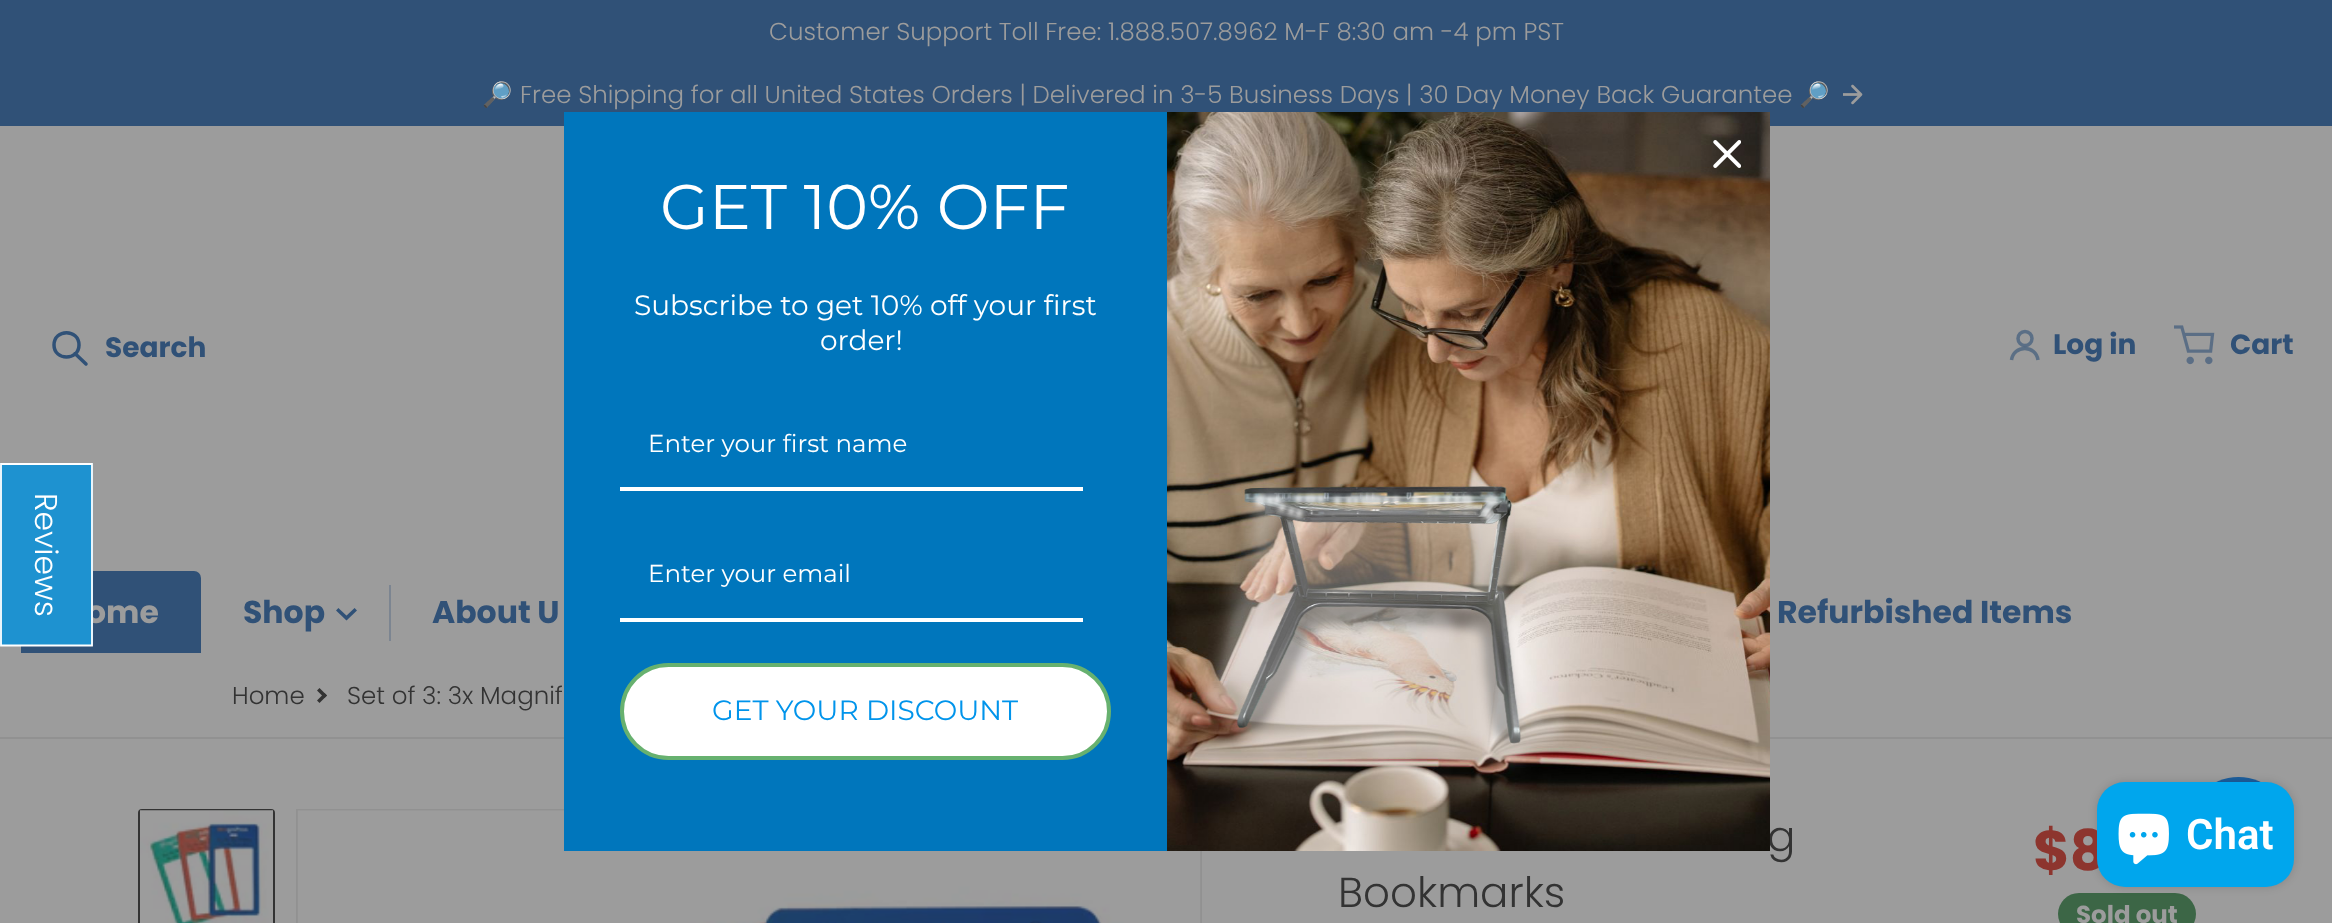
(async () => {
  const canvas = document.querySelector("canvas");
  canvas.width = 2332;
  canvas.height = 923;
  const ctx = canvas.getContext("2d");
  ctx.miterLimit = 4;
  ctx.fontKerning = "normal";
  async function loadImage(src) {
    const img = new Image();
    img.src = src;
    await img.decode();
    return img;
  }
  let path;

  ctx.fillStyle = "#9c9c9c";
  ctx.fillRect(0, 0, 2332, 923);
  ctx.fillStyle = "#305177";
  ctx.fillRect(0, 0, 2332, 126);
  ctx.drawImage(await loadImage("img/1.png"), 1843, 84, 20, 21);
  ctx.fillStyle = "#919191";
  ctx.fillRect(0, 737, 2332, 2);
  ctx.strokeStyle = "#919191";
  ctx.lineWidth = 2;
  ctx.strokeRect(297, 810, 904, 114);
  ctx.drawImage(await loadImage("img/6.png"), 297, 810, 904, 113);
  for (const [x, y, w, h, color] of [
    [564, 112, 603, 739, "#0076bc"],
    [620, 487, 463, 4, "#ffffff"],
    [620, 618, 463, 4, "#ffffff"],
  ]) {
    ctx.fillStyle = color;
    ctx.fillRect(x, y, w, h);
  }
  ctx.beginPath();
  ctx.roundRect(622, 665, 487, 93, 46.5);
  ctx.fill();
  ctx.strokeStyle = "#67b16f";
  ctx.lineWidth = 4;
  ctx.stroke();
  path = new Path2D("M86 364L75 353.5M79 345C79 361 54 361 54 345C54 328.5 79 328.5 79 345Z");
  ctx.strokeStyle = "#305177";
  ctx.lineWidth = 3.5;
  ctx.lineCap = "round";
  ctx.lineJoin = "round";
  ctx.stroke(path);
  ctx.beginPath();
  ctx.arc(2025, 338.5, 7, 0, Math.PI * 2);
  ctx.strokeStyle = "#5b6f86";
  ctx.stroke();
  path = new Path2D("M2038 360C2036 344.5 2013.5 344.5 2011.5 360");
  ctx.strokeStyle = "rgba(48, 81, 119, 0.6)";
  ctx.lineCap = "butt";
  ctx.lineJoin = "miter";
  ctx.stroke(path);
  ctx.drawImage(await loadImage("img/4.png"), 2174, 325, 41, 40);
  ctx.fillStyle = "#305177";
  ctx.beginPath();
  ctx.roundRect(21, 571, 180, 82, [7, 7, 0, 0]);
  ctx.fill();
  path = new Path2D("M338.5 610.5L346.5 618L354.5 610.5");
  ctx.strokeStyle = "#305177";
  ctx.lineCap = "square";
  ctx.stroke(path);
  ctx.fillStyle = "#7c8591";
  ctx.fillRect(389, 585, 2, 56);
  ctx.fillStyle = "#333333";
  path = new Path2D("M317 690.5L319.5 688L327 695.5L324.5 698Z");
  ctx.fill(path);
  path = new Path2D("M317 700.5L324.5 693L327 695.5L319.5 703Z");
  ctx.fill(path);
  ctx.fillStyle = "#1c5e9c";
  ctx.beginPath();
  ctx.arc(2238.5, 829.5, 52.5, 0, Math.PI * 2);
  ctx.fill();
  ctx.beginPath();
  ctx.roundRect(139, 810, 135, 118, 3);
  ctx.strokeStyle = "#333333";
  ctx.lineWidth = 2;
  ctx.stroke();
  ctx.drawImage(await loadImage("img/5.png"), 140, 810, 133, 113);
  ctx.fillStyle = "#3c6646";
  ctx.beginPath();
  ctx.roundRect(2058, 893, 138, 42, 21);
  ctx.fill();
  ctx.fillStyle = "rgba(0, 0, 0, 0.15)";
  ctx.filter = "blur(4.5px)";
  ctx.beginPath();
  ctx.roundRect(2097, 782, 197, 105, 28);
  ctx.fill();
  ctx.filter = "none";
  ctx.font = "300 24.5px Poppins";
  ctx.fillStyle = "#9c9c9c";
  ctx.fillText("Customer Support Toll Free: 1.888.507.8962 M-F 8:30 am -4 pm PST", 769, 40);
  ctx.font = "24.5px Noto Color Emoji";
  ctx.fillText("🔎", 482, 103);
  ctx.font = "300 24.5px Poppins";
  ctx.fillText("Free Shipping for all United States Orders | Delivered in 3-5 Business Days | 30 Day Money Back Guarantee", 520, 103);
  ctx.font = "24.5px Noto Color Emoji";
  ctx.fillText("🔎", 1799, 103);
  ctx.font = "63px Montserrat";
  ctx.fillStyle = "#ffffff";
  ctx.fillText("GET 10% OFF", 660, 229);
  ctx.font = "28px Montserrat";
  ctx.fillText("Subscribe to get 10% off your first", 634, 315);
  ctx.fillText("order!", 820, 350);
  ctx.font = "24.5px Montserrat";
  ctx.fillText("Enter your first name", 648, 452);
  ctx.fillText("Enter your email", 648, 582);
  ctx.font = "28px Montserrat";
  ctx.fillStyle = "#0094eb";
  ctx.fillText("GET YOUR DISCOUNT", 712, 720);
  ctx.font = "bold 28px Poppins";
  ctx.fillStyle = "#305177";
  for (const [text, x, y] of [
    ["Search", 105, 357],
    ["Log in", 2053, 354],
    ["Cart", 2230, 354],
  ]) {
    ctx.fillText(text, x, y);
  }
  ctx.font = "bold 31.5px Poppins";
  ctx.fillStyle = "#9c9c9c";
  ctx.fillText("ome", 86, 623);
  ctx.fillStyle = "#1e92d0";
  ctx.fillRect(0, 463, 93, 183);
  path = new Path2D("M92 464V645.5H1V464Z");
  ctx.strokeStyle = "#ffffff";
  ctx.lineWidth = 1.8;
  ctx.lineCap = "butt";
  ctx.stroke(path);
  ctx.font = "300 31.5px Poppins";
  ctx.fillStyle = "#ffffff";
  ctx.save();
  ctx.translate(35, 493);
  ctx.rotate(90 * Math.PI / 180);
  ctx.fillText("Reviews", 0, 0);
  ctx.restore();
  ctx.font = "bold 31.5px Poppins";
  ctx.fillStyle = "#305177";
  for (const [text, x, y] of [
    ["Shop", 243, 623],
    ["About U", 432, 623],
    ["Refurbished Items", 1777, 623],
  ]) {
    ctx.fillText(text, x, y);
  }
  ctx.font = "300 24.5px Poppins";
  ctx.fillStyle = "#333333";
  ctx.fillText("Home", 232, 704);
  ctx.fillText("Set of 3: 3x Magnif", 347, 704);
  ctx.font = "300 42px Poppins";
  ctx.fillText("g", 1767, 851);
  ctx.drawImage(await loadImage("img/3.png"), 1167, 112, 603, 739);
  ctx.drawImage(await loadImage("img/2.png"), 1713, 140, 28, 28);
  ctx.fillText("Bookmarks", 1338, 907);
  ctx.font = "bold 56px Poppins";
  ctx.fillStyle = "#8d352e";
  ctx.fillText("$8", 2033, 870);
  ctx.font = "bold 24.5px Poppins";
  ctx.fillStyle = "#9c9c9c";
  ctx.fillText("Sold out", 2076, 923);
  ctx.fillStyle = "#00a6ed";
  ctx.beginPath();
  ctx.roundRect(2097, 782, 197, 105, 28);
  ctx.fill();
  ctx.drawImage(await loadImage("img/7.png"), 2118, 813, 51, 52);
  ctx.font = "600 42px Roboto";
  ctx.fillStyle = "#ffffff";
  ctx.fillText("Chat", 2186, 849);
})();
